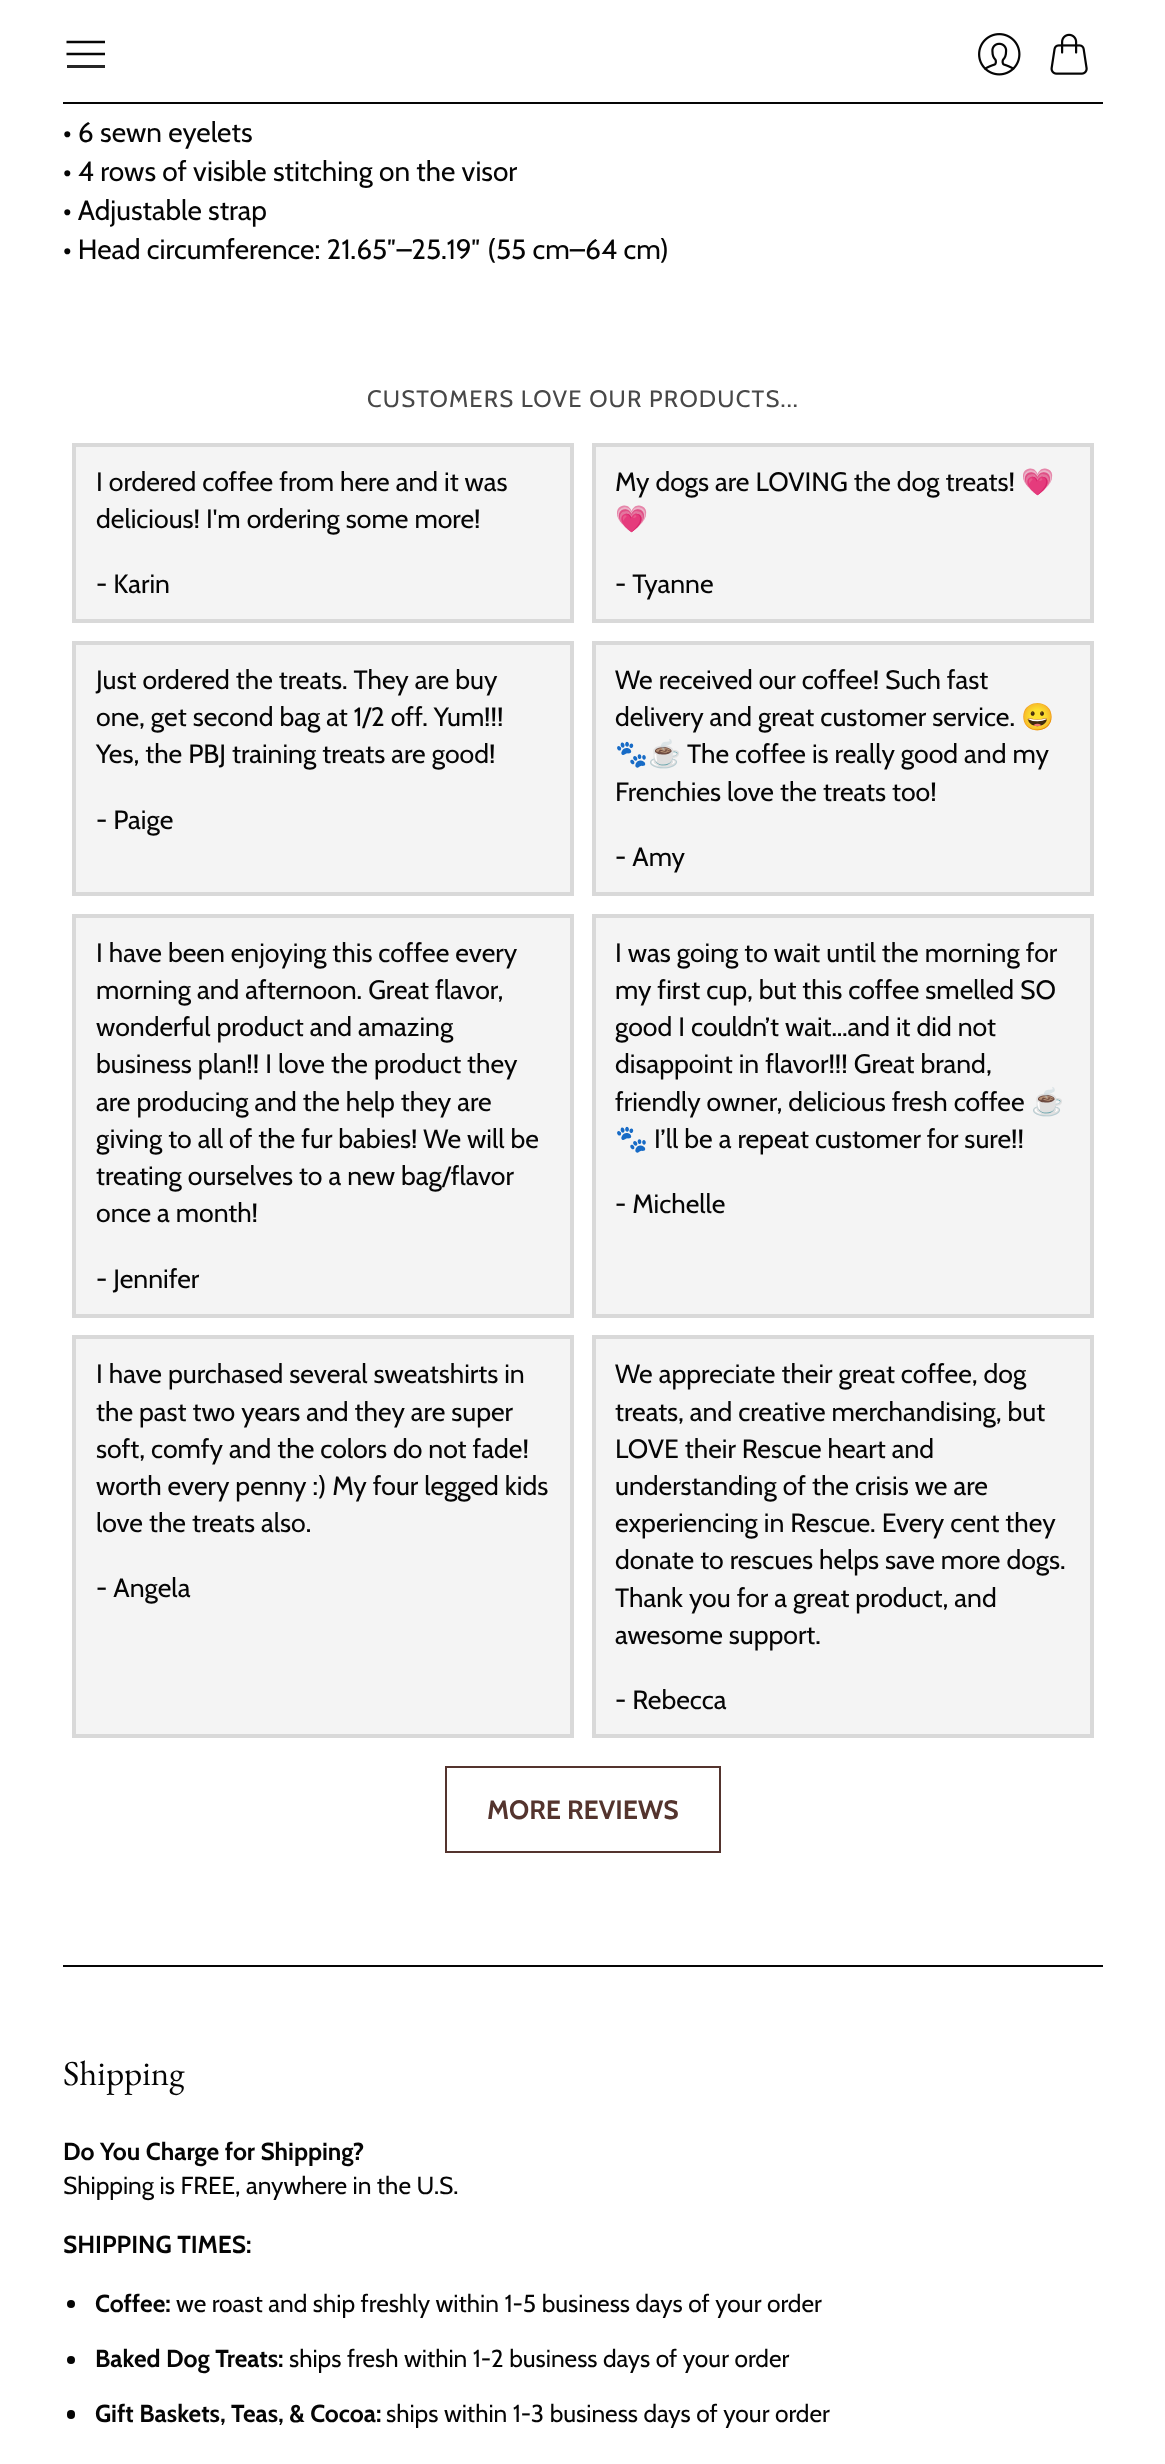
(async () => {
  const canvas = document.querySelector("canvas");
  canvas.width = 1165;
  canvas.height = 2464;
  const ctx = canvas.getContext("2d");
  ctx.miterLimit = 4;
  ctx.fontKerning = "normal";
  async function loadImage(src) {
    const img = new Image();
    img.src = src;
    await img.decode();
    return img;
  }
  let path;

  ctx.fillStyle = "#ffffff";
  ctx.fillRect(0, 0, 1165, 2464);
  path = new Path2D("M66.5 42H105M66.5 54H105");
  ctx.strokeStyle = "#050505";
  ctx.lineWidth = 2.6;
  ctx.stroke(path);
  ctx.fillStyle = "#262626";
  ctx.fillRect(67, 65, 38, 3);
  ctx.drawImage(await loadImage("img/1.png"), 978, 33, 43, 43);
  ctx.drawImage(await loadImage("img/2.png"), 1050, 33, 38, 42);
  ctx.fillStyle = "#050505";
  ctx.fillRect(63, 102, 1040, 2);
  ctx.fillStyle = "#f4f4f4";
  ctx.beginPath();
  ctx.rect(74, 445, 498, 176);
  ctx.fill();
  ctx.strokeStyle = "#d9d9d9";
  ctx.lineWidth = 4;
  ctx.stroke();
  ctx.beginPath();
  ctx.rect(594, 445, 498, 176);
  ctx.fill();
  ctx.stroke();
  ctx.beginPath();
  ctx.rect(74, 643, 498, 251);
  ctx.fill();
  ctx.stroke();
  ctx.beginPath();
  ctx.rect(594, 643, 498, 251);
  ctx.fill();
  ctx.stroke();
  ctx.beginPath();
  ctx.rect(74, 916, 498, 400);
  ctx.fill();
  ctx.stroke();
  ctx.beginPath();
  ctx.rect(594, 916, 498, 400);
  ctx.fill();
  ctx.stroke();
  ctx.beginPath();
  ctx.rect(74, 1337, 498, 399);
  ctx.fill();
  ctx.stroke();
  ctx.beginPath();
  ctx.rect(594, 1337, 498, 399);
  ctx.fill();
  ctx.stroke();
  ctx.strokeStyle = "#54342e";
  ctx.lineWidth = 2;
  ctx.strokeRect(446, 1767, 274, 85);
  ctx.fillStyle = "#050505";
  ctx.fillRect(63, 1965, 1040, 2);
  ctx.beginPath();
  ctx.arc(71, 2304, 4, 0, Math.PI * 2);
  ctx.fill();
  ctx.beginPath();
  ctx.arc(71, 2360, 4, 0, Math.PI * 2);
  ctx.fill();
  ctx.beginPath();
  ctx.roundRect(67, 2410, 8, 9, 4);
  ctx.fill();
  ctx.font = "28px Cabin";
  for (const [text, x, y] of [
    ["• 6 sewn eyelets", 63, 142],
    ["• 4 rows of visible stitching on the visor", 63, 181],
    ["• Adjustable strap", 63, 220],
    ["• Head circumference: 21.65″–25.19″ (55 cm–64 cm)", 63, 259],
  ]) {
    ctx.fillText(text, x, y);
  }
  ctx.letterSpacing = "1.2px";
  ctx.font = "23.75px Cabin";
  ctx.fillStyle = "#484848";
  ctx.fillText("CUSTOMERS LOVE OUR PRODUCTS...", 367, 407);
  ctx.letterSpacing = "0px";
  ctx.font = "26.6px Cabin";
  ctx.fillStyle = "#050505";
  for (const [text, x, y] of [
    ["I ordered coffee from here and it was", 96, 491],
    ["delicious! I'm ordering some more!", 96, 528],
    ["- Karin", 96, 593],
    ["My dogs are LOVING the dog treats!", 615, 491],
  ]) {
    ctx.fillText(text, x, y);
  }
  ctx.font = "26.6px Noto Color Emoji";
  ctx.fillText("💗", 1021, 491);
  ctx.fillText("💗", 615, 528);
  ctx.font = "26.6px Cabin";
  for (const [text, x, y] of [
    ["- Tyanne", 615, 593],
    ["Just ordered the treats. They are buy", 96, 689],
    ["one, get second bag at 1/2 off. Yum!!!", 96, 726],
    ["Yes, the PBJ training treats are good!", 96, 763],
    ["- Paige", 96, 829],
    ["We received our coffee! Such fast", 615, 689],
    ["delivery and great customer service.", 615, 726],
  ]) {
    ctx.fillText(text, x, y);
  }
  ctx.font = "26.6px Noto Color Emoji";
  ctx.fillText("😀", 1021, 726);
  ctx.fillText("🐾☕️", 615, 763);
  ctx.font = "26.6px Cabin";
  for (const [text, x, y] of [
    ["The coffee is really good and my", 687, 763],
    ["Frenchies love the treats too!", 615, 801],
    ["- Amy", 615, 866],
    ["I have been enjoying this coffee every", 96, 962],
    ["morning and afternoon. Great flavor,", 96, 999],
    ["wonderful product and amazing", 96, 1036],
    ["business plan!! I love the product they", 96, 1073],
    ["are producing and the help they are", 96, 1111],
    ["giving to all of the fur babies! We will be", 96, 1148],
    ["treating ourselves to a new bag/flavor", 96, 1185],
    ["once a month!", 96, 1222],
    ["- Jennifer", 96, 1288],
    ["I was going to wait until the morning for", 615, 962],
    ["my first cup, but this coffee smelled SO", 615, 999],
    ["good I couldn’t wait…and it did not", 615, 1036],
    ["disappoint in flavor!!! Great brand,", 615, 1073],
    ["friendly owner, delicious fresh coffee", 615, 1111],
  ]) {
    ctx.fillText(text, x, y);
  }
  ctx.font = "26.6px Noto Color Emoji";
  ctx.fillText("☕️", 1031, 1111);
  ctx.fillText("🐾", 615, 1148);
  ctx.font = "26.6px Cabin";
  for (const [text, x, y] of [
    ["I’ll be a repeat customer for sure!!", 654, 1148],
    ["- Michelle", 615, 1213],
    ["I have purchased several sweatshirts in", 96, 1383],
    ["the past two years and they are super", 96, 1421],
    ["soft, comfy and the colors do not fade!", 96, 1458],
    ["worth every penny :) My four legged kids", 96, 1495],
    ["love the treats also.", 96, 1532],
    ["- Angela", 96, 1597],
    ["We appreciate their great coffee, dog", 615, 1383],
    ["treats, and creative merchandising, but", 615, 1421],
    ["LOVE their Rescue heart and", 615, 1458],
    ["understanding of the crisis we are", 615, 1495],
    ["experiencing in Rescue. Every cent they", 615, 1532],
    ["donate to rescues helps save more dogs.", 615, 1569],
    ["Thank you for a great product, and", 615, 1607],
    ["awesome support.", 615, 1644],
    ["- Rebecca", 615, 1709],
  ]) {
    ctx.fillText(text, x, y);
  }
  ctx.font = "bold 26.6px Cabin";
  ctx.fillStyle = "#54342e";
  ctx.fillText("MORE REVIEWS", 487, 1819);
  ctx.font = "35px EB Garamond";
  ctx.fillStyle = "#050505";
  ctx.fillText("Shipping", 63, 2085);
  ctx.font = "bold 24.5px Cabin";
  ctx.fillText("Do You Charge for Shipping?", 63, 2160);
  ctx.font = "24.5px Cabin";
  ctx.fillText("Shipping is FREE, anywhere in the U.S.", 63, 2194);
  ctx.font = "bold 24.5px Cabin";
  ctx.fillText("SHIPPING TIMES:", 63, 2253);
  ctx.fillText("Coffee:", 95, 2312);
  ctx.font = "24.5px Cabin";
  ctx.fillText("we roast and ship freshly within 1-5 business days of your order", 176, 2312);
  ctx.font = "bold 24.5px Cabin";
  ctx.fillText("Baked Dog Treats:", 95, 2367);
  ctx.font = "24.5px Cabin";
  ctx.fillText("ships fresh within 1-2 business days of your order", 289, 2367);
  ctx.font = "bold 24.5px Cabin";
  ctx.fillText("Gift Baskets, Teas, & Cocoa:", 95, 2422);
  ctx.font = "24.5px Cabin";
  ctx.fillText("ships within 1-3 business days of your order", 386, 2422);
})();
